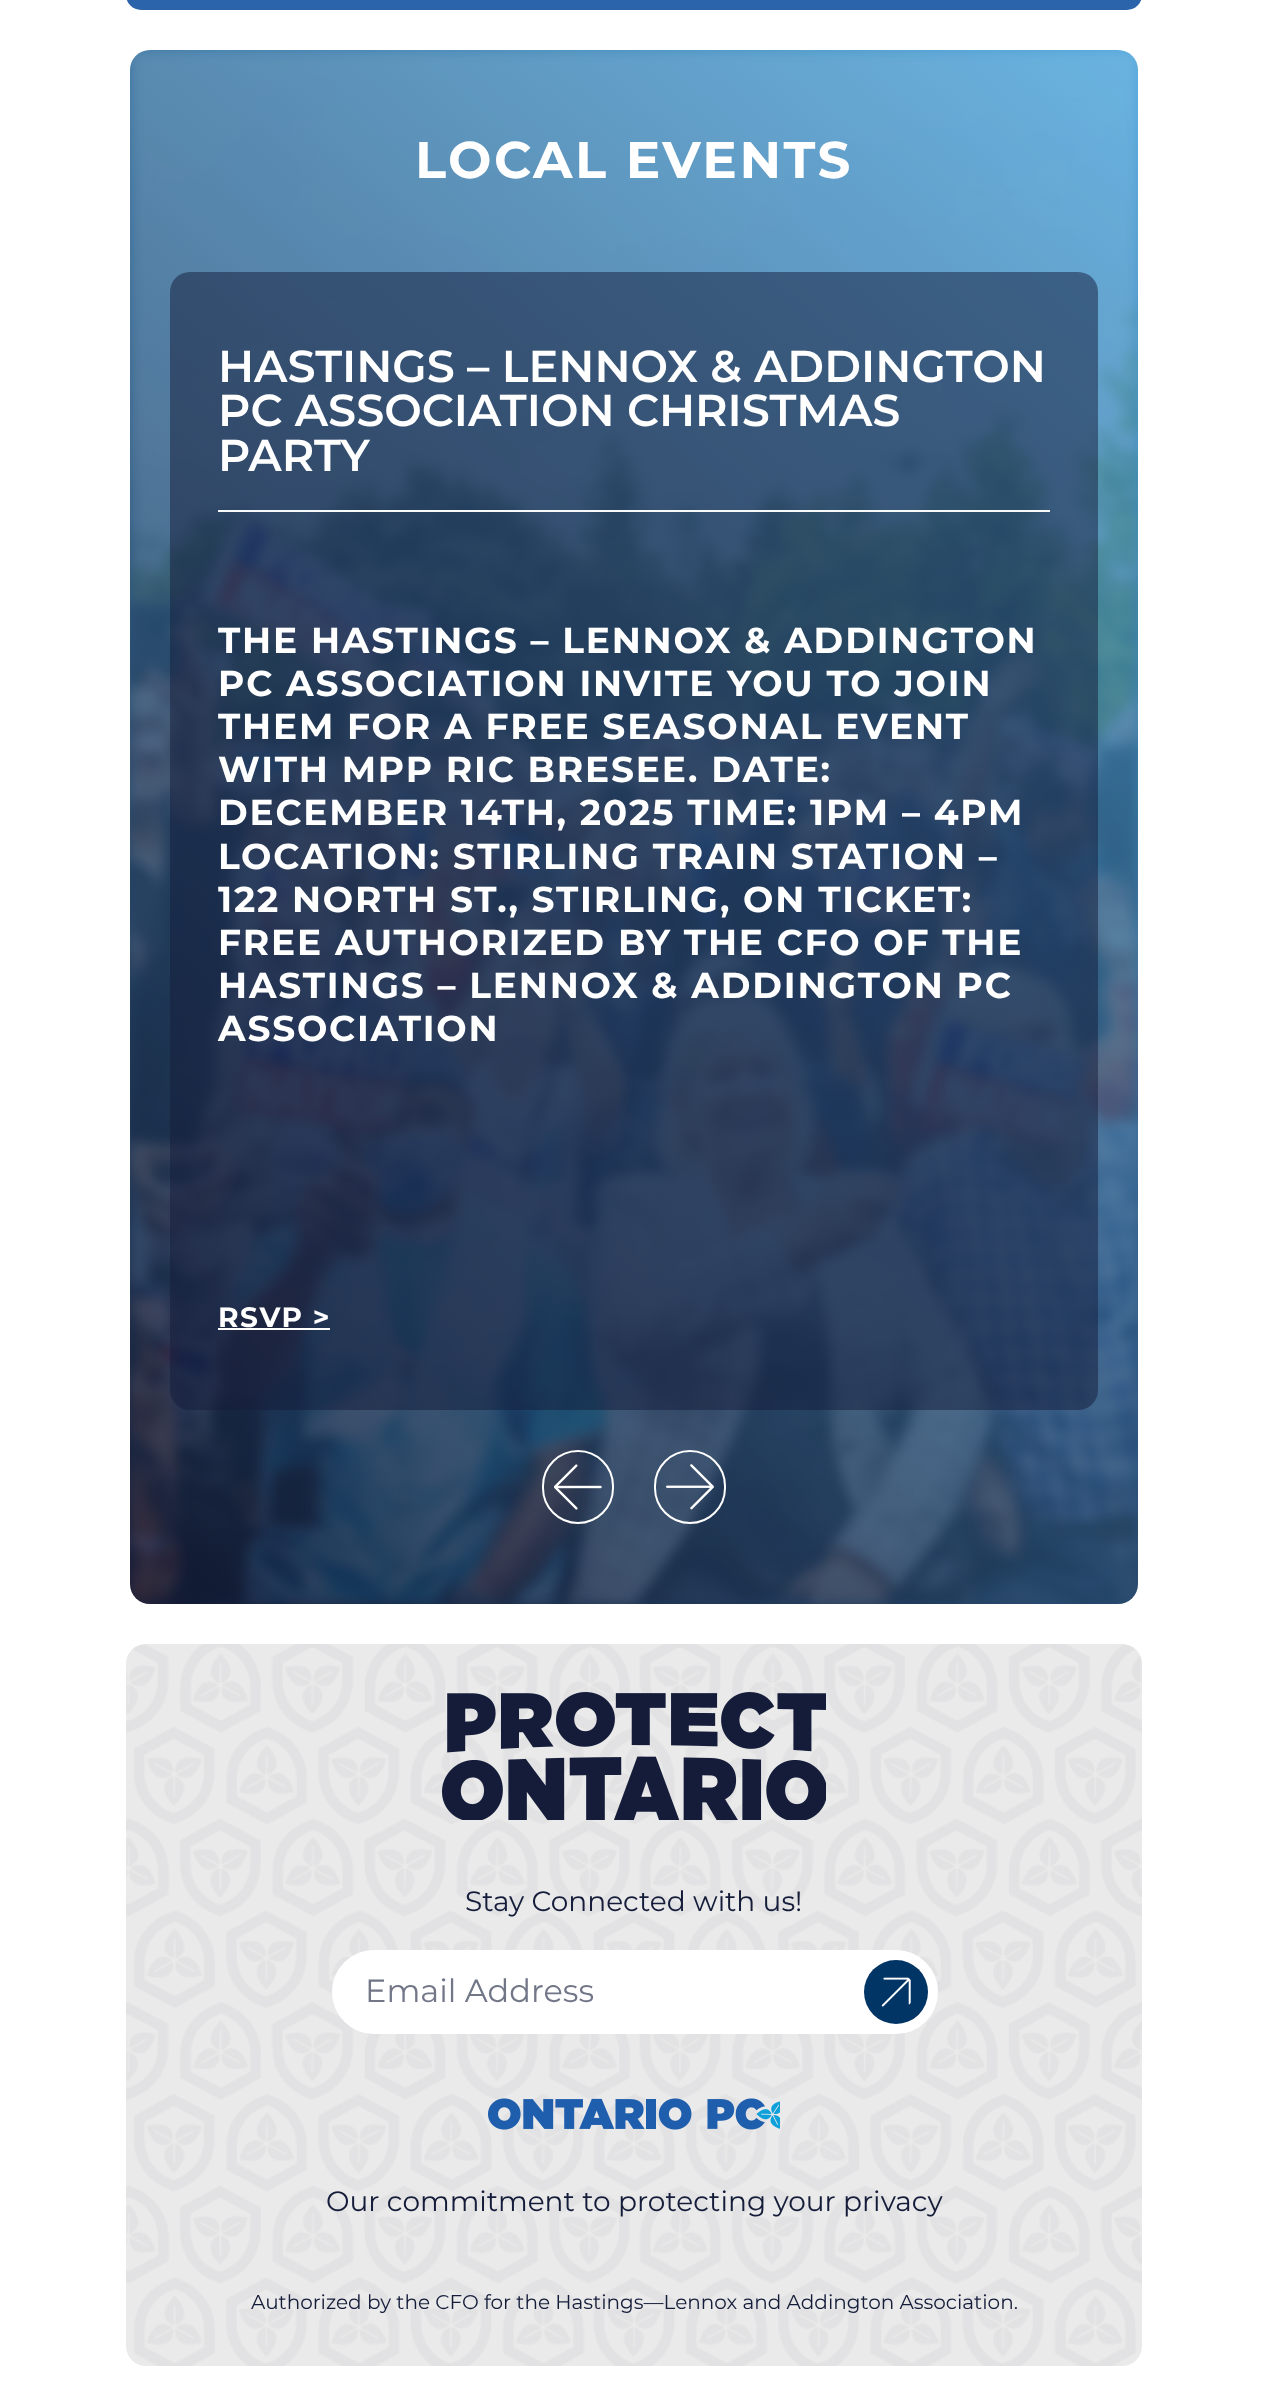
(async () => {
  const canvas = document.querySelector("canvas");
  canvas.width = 1267;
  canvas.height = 2405;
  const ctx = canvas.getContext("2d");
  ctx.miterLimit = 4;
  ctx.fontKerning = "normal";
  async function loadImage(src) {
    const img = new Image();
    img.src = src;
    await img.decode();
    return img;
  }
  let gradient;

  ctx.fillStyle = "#ffffff";
  ctx.fillRect(0, 0, 1267, 2405);
  ctx.fillStyle = "#2c64ab";
  ctx.beginPath();
  ctx.roundRect(126, -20, 1016, 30, 20);
  ctx.fill();
  gradient = ctx.createLinearGradient(43, 1531, 1225, 123);
  gradient.addColorStop(0, "#141c39");
  gradient.addColorStop(1, "#4fa6dc");
  ctx.fillStyle = gradient;
  ctx.beginPath();
  ctx.roundRect(130, 50, 1008, 1554, 20);
  ctx.fill();
  ctx.fillStyle = "#eaeaea";
  ctx.beginPath();
  ctx.roundRect(126, 1644, 1016, 722, 20);
  ctx.fill();
  ctx.drawImage(await loadImage("img/4.png"), 126, 1644, 1016, 722);
  ctx.drawImage(await loadImage("img/5.png"), 442, 1692, 384, 128);
  ctx.fillStyle = "#ffffff";
  ctx.beginPath();
  ctx.roundRect(333, 1951, 506, 82, [41, 0, 0, 41]);
  ctx.fill();
  ctx.strokeStyle = "#ffffff";
  ctx.lineWidth = 2;
  ctx.stroke();
  ctx.beginPath();
  ctx.roundRect(839, 1951, 98, 82, [0, 41, 41, 0]);
  ctx.fill();
  ctx.stroke();
  ctx.fillStyle = "#003566";
  ctx.beginPath();
  ctx.arc(896, 1992, 32, 0, Math.PI * 2);
  ctx.fill();
  ctx.drawImage(await loadImage("img/6.png"), 881, 1977, 30, 30);
  ctx.drawImage(await loadImage("img/7.png"), 488, 2098, 292, 32);
  ctx.letterSpacing = "2.5px";
  ctx.font = "bold 51.5px Montserrat";
  ctx.fillStyle = "#ffffff";
  ctx.fillText("LOCAL EVENTS", 415, 178);
  ctx.drawImage(await loadImage("img/1.png"), 130, 50, 1008, 1554);
  ctx.fillStyle = "rgba(20, 28, 57, 0.5)";
  ctx.beginPath();
  ctx.roundRect(170, 272, 928, 1138, 20);
  ctx.fill();
  ctx.fillStyle = "#f8f9fa";
  ctx.fillRect(218, 510, 832, 2);
  ctx.letterSpacing = "0px";
  ctx.font = "600 44.6px Montserrat";
  ctx.fillStyle = "#ffffff";
  for (const [text, x, y] of [
    ["HASTINGS – LENNOX & ADDINGTON", 218, 382],
    ["PC ASSOCIATION CHRISTMAS", 218, 426],
    ["PARTY", 218, 471],
  ]) {
    ctx.fillText(text, x, y);
  }
  ctx.letterSpacing = "1.8px";
  ctx.font = "bold 36px Montserrat";
  for (const [text, x, y] of [
    ["THE HASTINGS – LENNOX & ADDINGTON", 218, 653],
    ["PC ASSOCIATION INVITE YOU TO JOIN", 218, 696],
    ["THEM FOR A FREE SEASONAL EVENT", 218, 739],
    ["WITH MPP RIC BRESEE. DATE:", 218, 782],
    ["DECEMBER 14TH, 2025 TIME: 1PM – 4PM", 218, 825],
    ["LOCATION: STIRLING TRAIN STATION –", 218, 869],
    ["122 NORTH ST., STIRLING, ON TICKET:", 218, 912],
    ["FREE AUTHORIZED BY THE CFO OF THE", 218, 955],
    ["HASTINGS – LENNOX & ADDINGTON PC", 218, 998],
    ["ASSOCIATION", 218, 1041],
  ]) {
    ctx.fillText(text, x, y);
  }
  ctx.letterSpacing = "1.5px";
  ctx.font = "bold 28px Montserrat";
  ctx.fillText("RSVP >", 218, 1327);
  ctx.fillRect(218, 1328, 112, 2);
  ctx.beginPath();
  ctx.roundRect(543, 1451, 70, 72, 35);
  ctx.stroke();
  ctx.drawImage(await loadImage("img/2.png"), 554, 1464, 48, 46);
  ctx.beginPath();
  ctx.roundRect(655, 1451, 70, 72, 35);
  ctx.stroke();
  ctx.drawImage(await loadImage("img/3.png"), 666, 1464, 48, 46);
  ctx.letterSpacing = "0px";
  ctx.font = "28px Montserrat";
  ctx.fillStyle = "#141c39";
  ctx.fillText("Stay Connected with us!", 465, 1911);
  ctx.font = "32px Montserrat";
  ctx.fillStyle = "#727788";
  ctx.fillText("Email Address", 365, 2002);
  ctx.font = "28px Montserrat";
  ctx.fillStyle = "#141c39";
  ctx.fillText("Our commitment to protecting your privacy", 326, 2211);
  ctx.font = "20px Montserrat";
  ctx.fillText("Authorized by the CFO for the Hastings—Lennox and Addington Association.", 251, 2309);
})();
